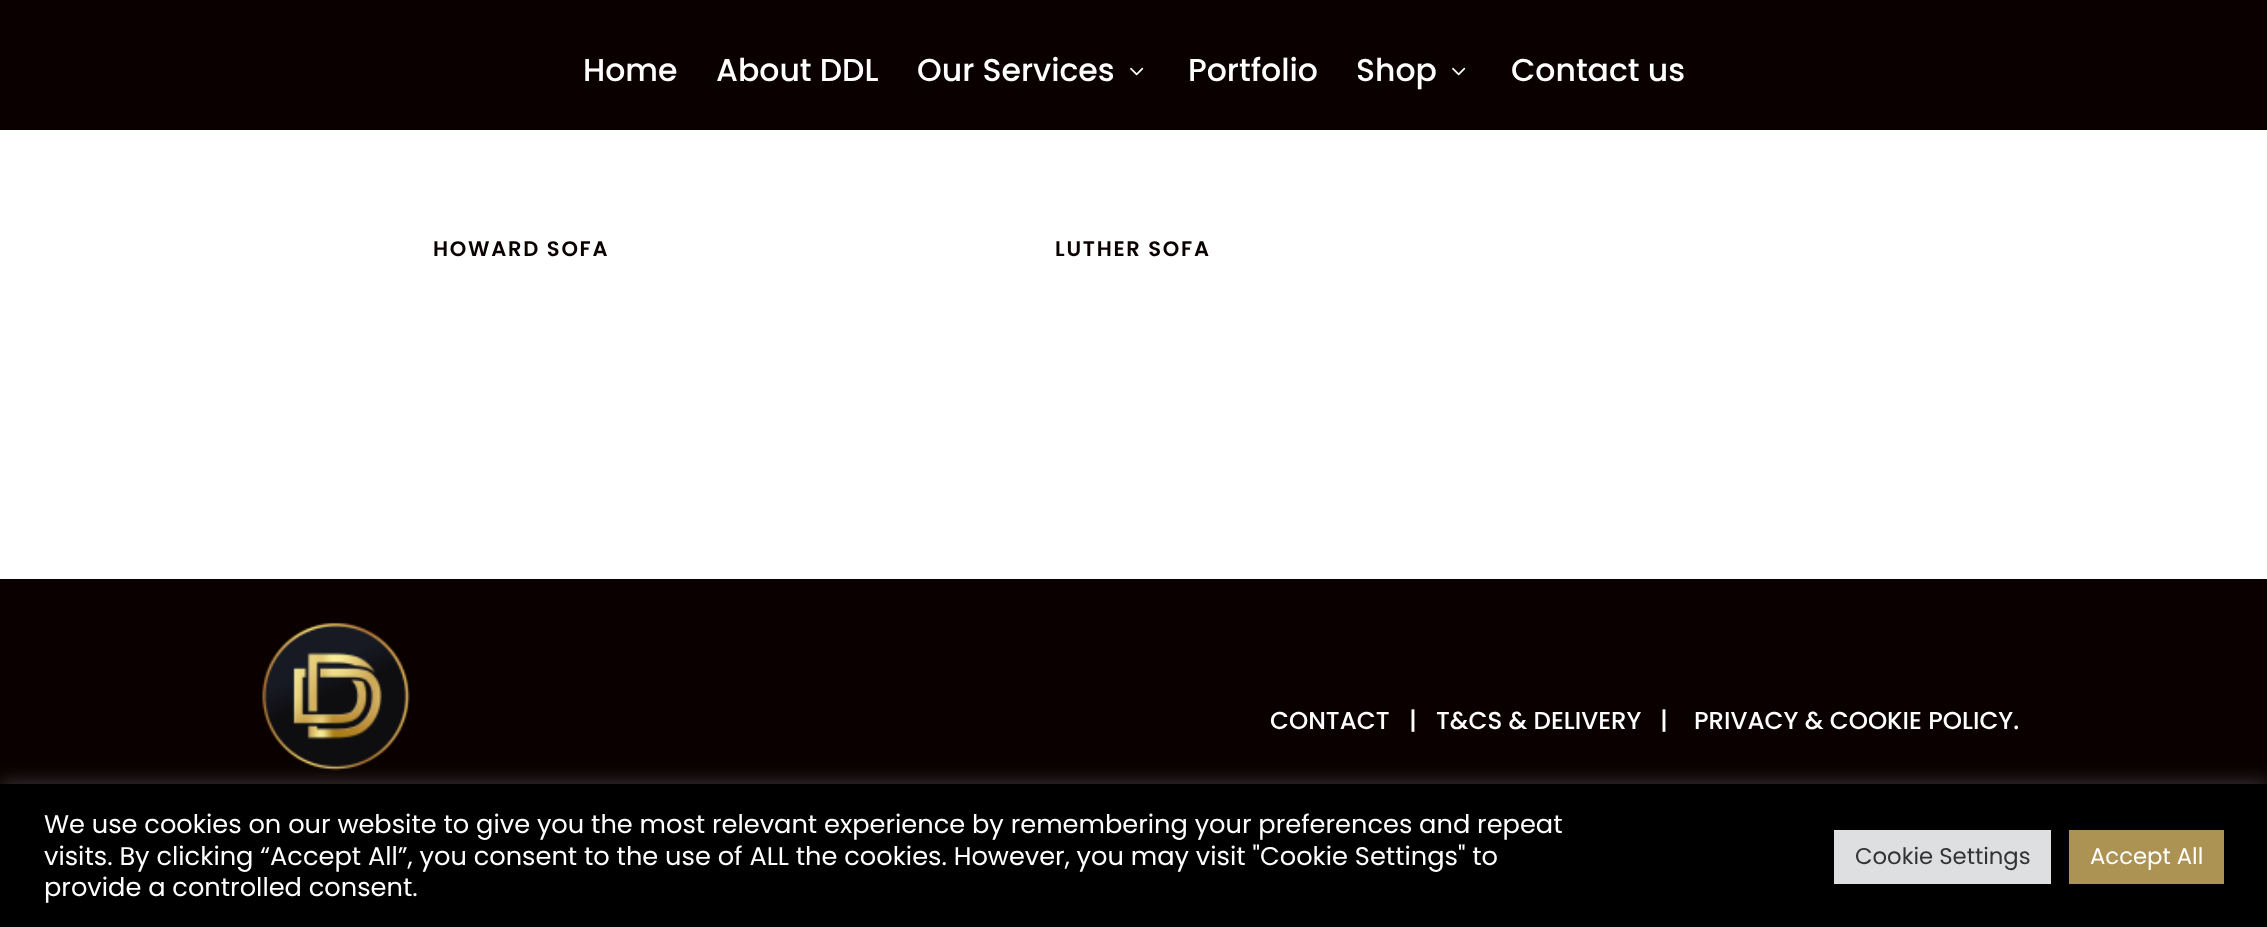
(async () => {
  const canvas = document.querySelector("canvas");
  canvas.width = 2267;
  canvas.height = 927;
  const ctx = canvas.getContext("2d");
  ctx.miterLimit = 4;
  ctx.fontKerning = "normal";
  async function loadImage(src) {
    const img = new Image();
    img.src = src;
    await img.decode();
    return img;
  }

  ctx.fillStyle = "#ffffff";
  ctx.fillRect(0, 0, 2267, 927);
  ctx.fillStyle = "#0a0000";
  ctx.fillRect(0, 0, 2267, 130);
  ctx.drawImage(await loadImage("img/1.png"), 1130, 67, 14, 9);
  ctx.drawImage(await loadImage("img/1.png"), 1452, 67, 14, 9);
  ctx.fillRect(0, 579, 2267, 205);
  ctx.drawImage(await loadImage("img/2.png"), 262, 622, 148, 149);
  ctx.fillStyle = "rgba(172, 171, 171, 0.3)";
  ctx.filter = "blur(9px)";
  ctx.beginPath();
  ctx.rect(0, 782, 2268, 144);
  ctx.fill();
  ctx.filter = "none";
  for (const [x, y, w, h, color] of [
    [0, 784, 2267, 143, "#000000"],
    [1834, 830, 217, 54, "#dedfe0"],
    [2069, 830, 155, 54, "#ac9353"],
  ]) {
    ctx.fillStyle = color;
    ctx.fillRect(x, y, w, h);
  }
  ctx.font = "500 31.5px Poppins";
  ctx.fillStyle = "#ffffff";
  for (const [text, x, y] of [
    ["Home", 583, 81],
    ["About DDL", 716, 81],
    ["Our Services", 917, 81],
    ["Portfolio", 1188, 81],
    ["Shop", 1356, 81],
    ["Contact us", 1511, 81],
  ]) {
    ctx.fillText(text, x, y);
  }
  ctx.letterSpacing = "1.75px";
  ctx.font = "600 21px Poppins";
  ctx.fillStyle = "#0a0000";
  ctx.fillText("HOWARD SOFA", 433, 256);
  ctx.fillText("LUTHER SOFA", 1055, 256);
  ctx.letterSpacing = "0px";
  ctx.font = "500 24.5px Poppins";
  ctx.fillStyle = "#ffffff";
  for (const [text, x, y] of [
    ["CONTACT", 1270, 729],
    ["|", 1409, 729],
    ["T&CS & DELIVERY", 1436, 729],
    ["|", 1660, 729],
    ["PRIVACY & COOKIE POLICY.", 1694, 729],
  ]) {
    ctx.fillText(text, x, y);
  }
  ctx.font = "25.67px Poppins";
  for (const [text, x, y] of [
    ["We use cookies on our website to give you the most relevant experience by remembering your preferences and repeat", 44, 833],
    ["visits. By clicking “Accept All”, you consent to the use of ALL the cookies. However, you may visit \"Cookie Settings\" to", 44, 865],
    ["provide a controlled consent.", 44, 896],
  ]) {
    ctx.fillText(text, x, y);
  }
  ctx.font = "22.75px Poppins";
  ctx.fillStyle = "#333333";
  ctx.fillText("Cookie Settings", 1855, 864);
  ctx.fillStyle = "#ffffff";
  ctx.fillText("Accept All", 2090, 864);
})();
